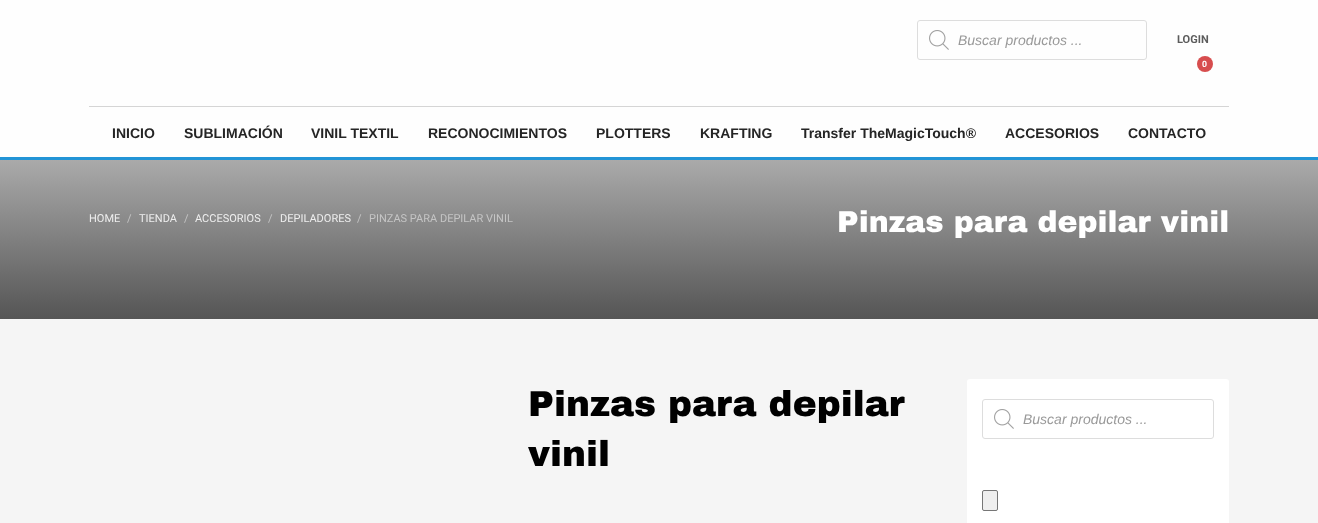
(async () => {
  const canvas = document.querySelector("canvas");
  canvas.width = 1318;
  canvas.height = 523;
  const ctx = canvas.getContext("2d");
  ctx.miterLimit = 4;
  ctx.fontKerning = "normal";
  async function loadImage(src) {
    const img = new Image();
    img.src = src;
    await img.decode();
    return img;
  }
  let gradient;

  ctx.fillStyle = "#f5f5f5";
  ctx.fillRect(0, 0, 1318, 523);
  ctx.fillStyle = "#fefefe";
  ctx.fillRect(0, 0, 1318, 157);
  ctx.fillStyle = "#2294d6";
  ctx.fillRect(0, 157, 1318, 3);
  ctx.beginPath();
  ctx.roundRect(917.5, 20.5, 229, 39, 2.5);
  ctx.strokeStyle = "#dddddd";
  ctx.stroke();
  ctx.drawImage(await loadImage("img/1.png"), 929, 30, 20, 20);
  ctx.fillStyle = "#d74d4e";
  ctx.beginPath();
  ctx.arc(1205, 64, 8, 0, Math.PI * 2);
  ctx.fill();
  ctx.fillStyle = "#d5d5d5";
  ctx.fillRect(89, 106, 1140, 1);
  gradient = ctx.createLinearGradient(659, 160, 659, 319);
  gradient.addColorStop(0, "#aaaaaa");
  gradient.addColorStop(1, "#555555");
  ctx.fillStyle = gradient;
  ctx.fillRect(0, 160, 1318, 159);
  ctx.fillStyle = "#ffffff";
  ctx.beginPath();
  ctx.roundRect(967, 379, 262, 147, 3);
  ctx.fill();
  ctx.beginPath();
  ctx.roundRect(982.5, 399.5, 231, 39, 2.5);
  ctx.stroke();
  ctx.drawImage(await loadImage("img/2.png"), 994, 409, 20, 20);
  ctx.fillStyle = "#efefef";
  ctx.beginPath();
  ctx.roundRect(982.5, 490.5, 15, 20, 1.5);
  ctx.fill();
  ctx.strokeStyle = "#767676";
  ctx.stroke();
  ctx.font = "italic 14px Liberation Sans";
  ctx.fillStyle = "#999999";
  ctx.fillText("Buscar productos ...", 958, 45);
  ctx.font = "bold 11px Roboto";
  ctx.fillStyle = "#5c5c5c";
  ctx.fillText("LOGIN", 1177, 43);
  ctx.font = "bold 9px Liberation Sans";
  ctx.fillStyle = "#ffffff";
  ctx.fillText("0", 1202, 67);
  ctx.font = "bold 14px Liberation Sans";
  ctx.fillStyle = "#252525";
  for (const [text, x, y] of [
    ["INICIO", 112, 138],
    ["SUBLIMACIÓN", 184, 138],
    ["VINIL TEXTIL", 311, 138],
    ["RECONOCIMIENTOS", 428, 138],
    ["PLOTTERS", 596, 138],
    ["KRAFTING", 700, 138],
    ["Transfer TheMagicTouch®", 801, 138],
    ["ACCESORIOS", 1005, 138],
    ["CONTACTO", 1128, 138],
  ]) {
    ctx.fillText(text, x, y);
  }
  ctx.font = "11px Roboto";
  ctx.fillStyle = "#eeeeee";
  ctx.fillText("HOME", 89, 222);
  ctx.fillStyle = "#c5c5c5";
  ctx.fillText("/", 127, 222);
  ctx.fillStyle = "#eeeeee";
  ctx.fillText("TIENDA", 139, 222);
  ctx.fillStyle = "#c5c5c5";
  ctx.fillText("/", 184, 222);
  ctx.fillStyle = "#eeeeee";
  ctx.fillText("ACCESORIOS", 195, 222);
  ctx.fillStyle = "#c5c5c5";
  ctx.fillText("/", 268, 222);
  ctx.fillStyle = "#eeeeee";
  ctx.fillText("DEPILADORES", 280, 222);
  ctx.fillStyle = "#c5c5c5";
  ctx.fillText("/", 357, 222);
  ctx.fillText("PINZAS PARA DEPILAR VINIL", 369, 222);
  ctx.font = "900 30px Archivo Black";
  ctx.fillStyle = "#ffffff";
  ctx.fillText("Pinzas para depilar vinil", 837, 232);
  ctx.font = "900 36px Archivo Black";
  ctx.fillStyle = "#000000";
  ctx.fillText("Pinzas para depilar", 528, 416);
  ctx.fillText("vinil", 528, 466);
  ctx.font = "italic 14px Liberation Sans";
  ctx.fillStyle = "#999999";
  ctx.fillText("Buscar productos ...", 1023, 424);
})();
